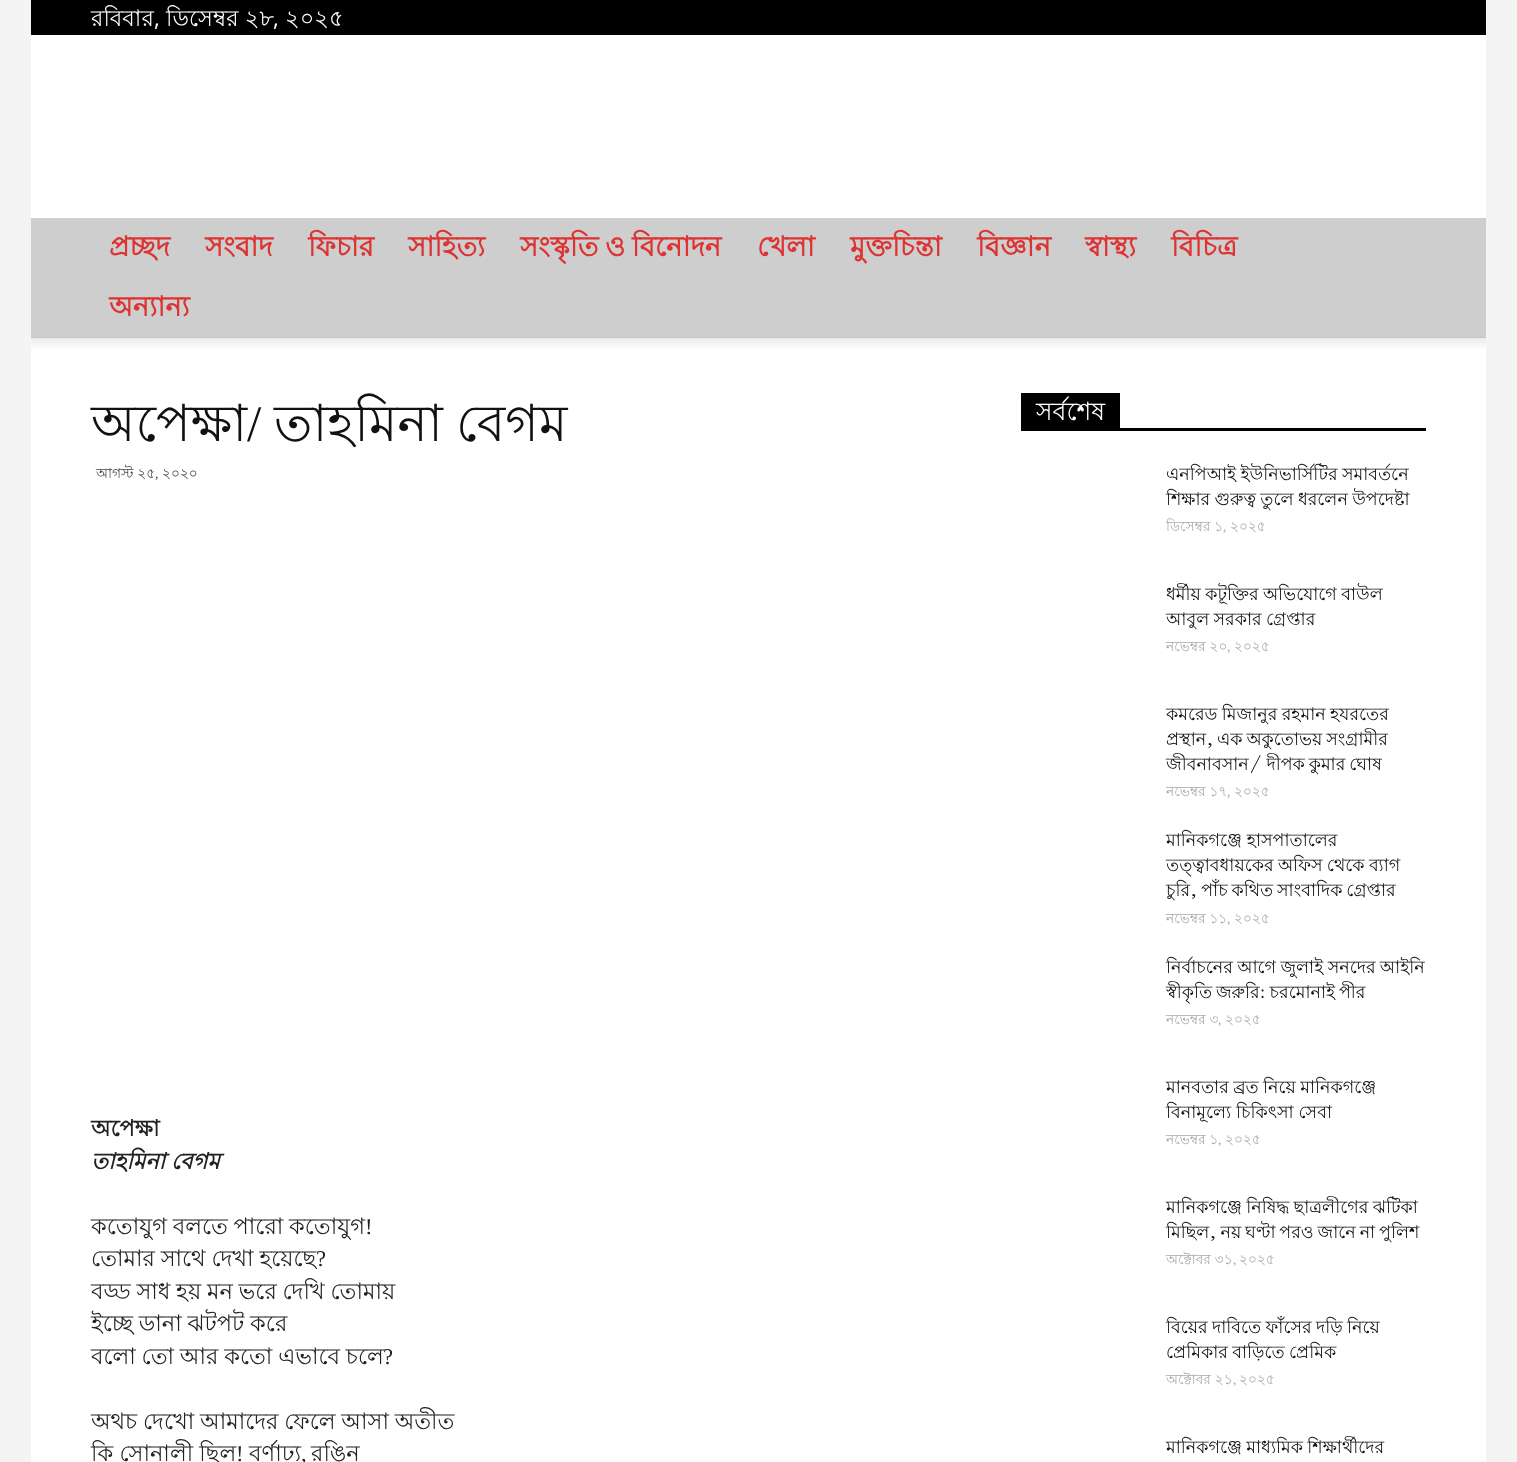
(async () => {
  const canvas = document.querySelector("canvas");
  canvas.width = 1517;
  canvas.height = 1462;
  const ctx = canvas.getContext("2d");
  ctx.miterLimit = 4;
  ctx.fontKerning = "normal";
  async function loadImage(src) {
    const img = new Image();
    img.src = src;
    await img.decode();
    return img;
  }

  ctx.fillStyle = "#f4f4f4";
  ctx.fillRect(0, 0, 1517, 1462);
  for (const [x, y, w, h, color] of [
    [31, 0, 1455, 35, "#000000"],
    [31, 35, 1455, 183, "#ffffff"],
    [31, 218, 1455, 120, "#cecece"],
    [31, 338, 1455, 1124, "#ffffff"],
  ]) {
    ctx.fillStyle = color;
    ctx.fillRect(x, y, w, h);
  }
  ctx.drawImage(await loadImage("img/1.png"), 31, 337, 1455, 11);
  ctx.fillStyle = "#000000";
  ctx.fillRect(1021, 428, 405, 3);
  ctx.fillRect(1021, 393, 99, 35);
  ctx.font = "22.5px Lohit Bengali";
  ctx.fillStyle = "#ffffff";
  ctx.fillText("রবিবার", 91, 26);
  ctx.font = "22.5px Open Sans";
  ctx.fillText(",", 154, 26);
  ctx.font = "22.5px Lohit Bengali";
  ctx.fillText("ডিসেম্বর ২৮", 166, 26);
  ctx.font = "22.5px Open Sans";
  ctx.fillText(",", 273, 26);
  ctx.font = "22.5px Lohit Bengali";
  ctx.fillText("২০২৫", 285, 26);
  ctx.font = "bold 27.5px Lohit Bengali";
  ctx.fillStyle = "#dd3333";
  for (const [text, x, y] of [
    ["প্রচ্ছদ", 109, 256],
    ["সংবাদ", 205, 256],
    ["ফিচার", 308, 256],
    ["সাহিত্য", 408, 256],
  ]) {
    ctx.fillText(text, x, y);
  }
  ctx.wordSpacing = "-1px";
  ctx.fillText("সংস্কৃতি ও বিনোদন", 520, 256);
  ctx.wordSpacing = "0px";
  for (const [text, x, y] of [
    ["খেলা", 757, 256],
    ["মুক্তচিন্তা", 850, 256],
    ["বিজ্ঞান", 977, 256],
    ["স্বাস্থ্য", 1085, 256],
    ["বিচিত্র", 1171, 256],
    ["অন্যান্য", 109, 316],
  ]) {
    ctx.fillText(text, x, y);
  }
  ctx.font = "51.25px Lohit Bengali";
  ctx.fillStyle = "#111111";
  ctx.fillText("অপেক্ষা", 91, 441);
  ctx.font = "51.25px Liberation Serif";
  ctx.fillText("/", 247, 441);
  ctx.wordSpacing = "-1px";
  ctx.font = "51.25px Lohit Bengali";
  ctx.fillText("তাহমিনা বেগম", 274, 441);
  ctx.wordSpacing = "0px";
  ctx.font = "13.75px Lohit Bengali";
  ctx.fillStyle = "#444444";
  ctx.fillText("আগস্ট ২৫", 96, 478);
  ctx.font = "13.75px Liberation Serif";
  ctx.fillText(",", 155, 478);
  ctx.font = "13.75px Lohit Bengali";
  ctx.fillText("২০২০", 162, 478);
  ctx.font = "bold 22.5px Lohit Bengali";
  ctx.fillStyle = "#222222";
  ctx.fillText("অপেক্ষা", 91, 1136);
  ctx.wordSpacing = "-0.5px";
  ctx.font = "italic bold 22.5px Lohit Bengali";
  ctx.fillText("তাহমিনা বেগম", 91, 1169);
  ctx.font = "22.5px Lohit Bengali";
  ctx.fillText("কতোযুগ বলতে পারো কতোযুগ", 91, 1234);
  ctx.wordSpacing = "0px";
  ctx.font = "22.5px Liberation Serif";
  ctx.fillText("!", 365, 1234);
  ctx.wordSpacing = "-0.5px";
  ctx.font = "22.5px Lohit Bengali";
  ctx.fillText("তোমার সাথে দেখা হয়েছে", 91, 1266);
  ctx.wordSpacing = "0px";
  ctx.font = "22.5px Liberation Serif";
  ctx.fillText("?", 316, 1266);
  ctx.wordSpacing = "-0.5px";
  ctx.font = "22.5px Lohit Bengali";
  for (const [text, x, y] of [
    ["বড্ড সাধ হয় মন ভরে দেখি তোমায়", 91, 1299],
    ["ইচ্ছে ডানা ঝটপট করে", 91, 1331],
    ["বলো তো আর কতো এভাবে চলে", 91, 1364],
  ]) {
    ctx.fillText(text, x, y);
  }
  ctx.wordSpacing = "0px";
  ctx.font = "22.5px Liberation Serif";
  ctx.fillText("?", 383, 1364);
  ctx.wordSpacing = "-0.5px";
  ctx.font = "22.5px Lohit Bengali";
  ctx.fillText("অথচ দেখো আমাদের ফেলে আসা অতীত", 91, 1429);
  ctx.wordSpacing = "0px";
  ctx.fillText("কি সোনালী ছিল", 91, 1461);
  ctx.font = "22.5px Liberation Serif";
  ctx.fillText("!", 236, 1461);
  ctx.font = "22.5px Lohit Bengali";
  ctx.fillText("বর্ণাঢ্য", 249, 1461);
  ctx.font = "22.5px Liberation Serif";
  ctx.fillText(",", 301, 1461);
  ctx.font = "22.5px Lohit Bengali";
  ctx.fillText("রঙিন", 311, 1461);
  ctx.font = "25px Lohit Bengali";
  ctx.fillStyle = "#ffffff";
  ctx.fillText("সর্বশেষ", 1036, 420);
  ctx.wordSpacing = "-0.5px";
  ctx.font = "17.5px Lohit Bengali";
  ctx.fillStyle = "#111111";
  ctx.fillText("এনপিআই ইউনিভার্সিটির সমাবর্তনে", 1166, 480);
  ctx.fillText("শিক্ষার গুরুত্ব তুলে ধরলেন উপদেষ্টা", 1166, 505);
  ctx.wordSpacing = "0px";
  ctx.font = "13.75px Lohit Bengali";
  ctx.fillStyle = "#aaaaaa";
  ctx.fillText("ডিসেম্বর ১", 1166, 531);
  ctx.font = "13.75px Liberation Serif";
  ctx.fillText(",", 1223, 531);
  ctx.font = "13.75px Lohit Bengali";
  ctx.fillText("২০২৫", 1230, 531);
  ctx.wordSpacing = "-0.5px";
  ctx.font = "17.5px Lohit Bengali";
  ctx.fillStyle = "#111111";
  ctx.fillText("ধর্মীয় কটূক্তির অভিযোগে বাউল", 1166, 600);
  ctx.fillText("আবুল সরকার গ্রেপ্তার", 1166, 625);
  ctx.wordSpacing = "0px";
  ctx.font = "13.75px Lohit Bengali";
  ctx.fillStyle = "#aaaaaa";
  ctx.fillText("নভেম্বর ২০", 1166, 651);
  ctx.font = "13.75px Liberation Serif";
  ctx.fillText(",", 1227, 651);
  ctx.font = "13.75px Lohit Bengali";
  ctx.fillText("২০২৫", 1234, 651);
  ctx.wordSpacing = "-0.5px";
  ctx.font = "17.5px Lohit Bengali";
  ctx.fillStyle = "#111111";
  ctx.fillText("কমরেড মিজানুর রহমান হযরতের", 1166, 720);
  ctx.wordSpacing = "0px";
  ctx.fillText("প্রস্থান,", 1166, 745);
  ctx.wordSpacing = "-1px";
  ctx.fillText("এক অকুতোভয় সংগ্রামীর", 1217, 745);
  ctx.fillText("জীবনাবসান/ দীপক কুমার ঘোষ", 1166, 770);
  ctx.wordSpacing = "0px";
  ctx.font = "13.75px Lohit Bengali";
  ctx.fillStyle = "#aaaaaa";
  ctx.fillText("নভেম্বর ১৭", 1166, 796);
  ctx.font = "13.75px Liberation Serif";
  ctx.fillText(",", 1227, 796);
  ctx.font = "13.75px Lohit Bengali";
  ctx.fillText("২০২৫", 1234, 796);
  ctx.font = "17.5px Lohit Bengali";
  ctx.fillStyle = "#111111";
  ctx.fillText("মানিকগঞ্জে হাসপাতালের", 1166, 846);
  ctx.wordSpacing = "-0.5px";
  ctx.fillText("তত্ত্বাবধায়কের অফিস থেকে ব্যাগ", 1166, 871);
  ctx.wordSpacing = "-1px";
  ctx.fillText("চুরি, পাঁচ কথিত সাংবাদিক গ্রেপ্তার", 1166, 896);
  ctx.wordSpacing = "0px";
  ctx.font = "13.75px Lohit Bengali";
  ctx.fillStyle = "#aaaaaa";
  ctx.fillText("নভেম্বর ১১", 1166, 923);
  ctx.font = "13.75px Liberation Serif";
  ctx.fillText(",", 1227, 923);
  ctx.font = "13.75px Lohit Bengali";
  ctx.fillText("২০২৫", 1234, 923);
  ctx.wordSpacing = "-0.5px";
  ctx.font = "17.5px Lohit Bengali";
  ctx.fillStyle = "#111111";
  ctx.fillText("নির্বাচনের আগে জুলাই সনদের আইনি", 1166, 973);
  ctx.wordSpacing = "-1px";
  ctx.fillText("স্বীকৃতি জরুরি: চরমোনাই পীর", 1166, 998);
  ctx.wordSpacing = "0px";
  ctx.font = "13.75px Lohit Bengali";
  ctx.fillStyle = "#aaaaaa";
  ctx.fillText("নভেম্বর ৩", 1166, 1024);
  ctx.font = "13.75px Liberation Serif";
  ctx.fillText(",", 1218, 1024);
  ctx.font = "13.75px Lohit Bengali";
  ctx.fillText("২০২৫", 1225, 1024);
  ctx.wordSpacing = "-0.5px";
  ctx.font = "17.5px Lohit Bengali";
  ctx.fillStyle = "#111111";
  ctx.fillText("মানবতার ব্রত নিয়ে মানিকগঞ্জে", 1166, 1093);
  ctx.wordSpacing = "0px";
  ctx.fillText("বিনামূল্যে চিকিৎসা সেবা", 1166, 1118);
  ctx.font = "13.75px Lohit Bengali";
  ctx.fillStyle = "#aaaaaa";
  ctx.fillText("নভেম্বর ১", 1166, 1144);
  ctx.font = "13.75px Liberation Serif";
  ctx.fillText(",", 1218, 1144);
  ctx.font = "13.75px Lohit Bengali";
  ctx.fillText("২০২৫", 1225, 1144);
  ctx.wordSpacing = "-0.5px";
  ctx.font = "17.5px Lohit Bengali";
  ctx.fillStyle = "#111111";
  ctx.fillText("মানিকগঞ্জে নিষিদ্ধ ছাত্রলীগের ঝটিকা", 1166, 1213);
  ctx.wordSpacing = "-1px";
  ctx.fillText("মিছিল, নয় ঘণ্টা পরও জানে না পুলিশ", 1166, 1238);
  ctx.wordSpacing = "0px";
  ctx.font = "13.75px Lohit Bengali";
  ctx.fillStyle = "#aaaaaa";
  ctx.fillText("অক্টোবর ৩১", 1166, 1264);
  ctx.font = "13.75px Liberation Serif";
  ctx.fillText(",", 1233, 1264);
  ctx.font = "13.75px Lohit Bengali";
  ctx.fillText("২০২৫", 1239, 1264);
  ctx.wordSpacing = "-0.5px";
  ctx.font = "17.5px Lohit Bengali";
  ctx.fillStyle = "#111111";
  ctx.fillText("বিয়ের দাবিতে ফাঁসের দড়ি নিয়ে", 1166, 1333);
  ctx.fillText("প্রেমিকার বাড়িতে প্রেমিক", 1166, 1358);
  ctx.wordSpacing = "0px";
  ctx.font = "13.75px Lohit Bengali";
  ctx.fillStyle = "#aaaaaa";
  ctx.fillText("অক্টোবর ২১", 1166, 1384);
  ctx.font = "13.75px Liberation Serif";
  ctx.fillText(",", 1233, 1384);
  ctx.font = "13.75px Lohit Bengali";
  ctx.fillText("২০২৫", 1239, 1384);
  ctx.wordSpacing = "-0.5px";
  ctx.font = "17.5px Lohit Bengali";
  ctx.fillStyle = "#111111";
  ctx.fillText("মানিকগঞ্জে মাধ্যমিক শিক্ষার্থীদের", 1166, 1453);
})();
